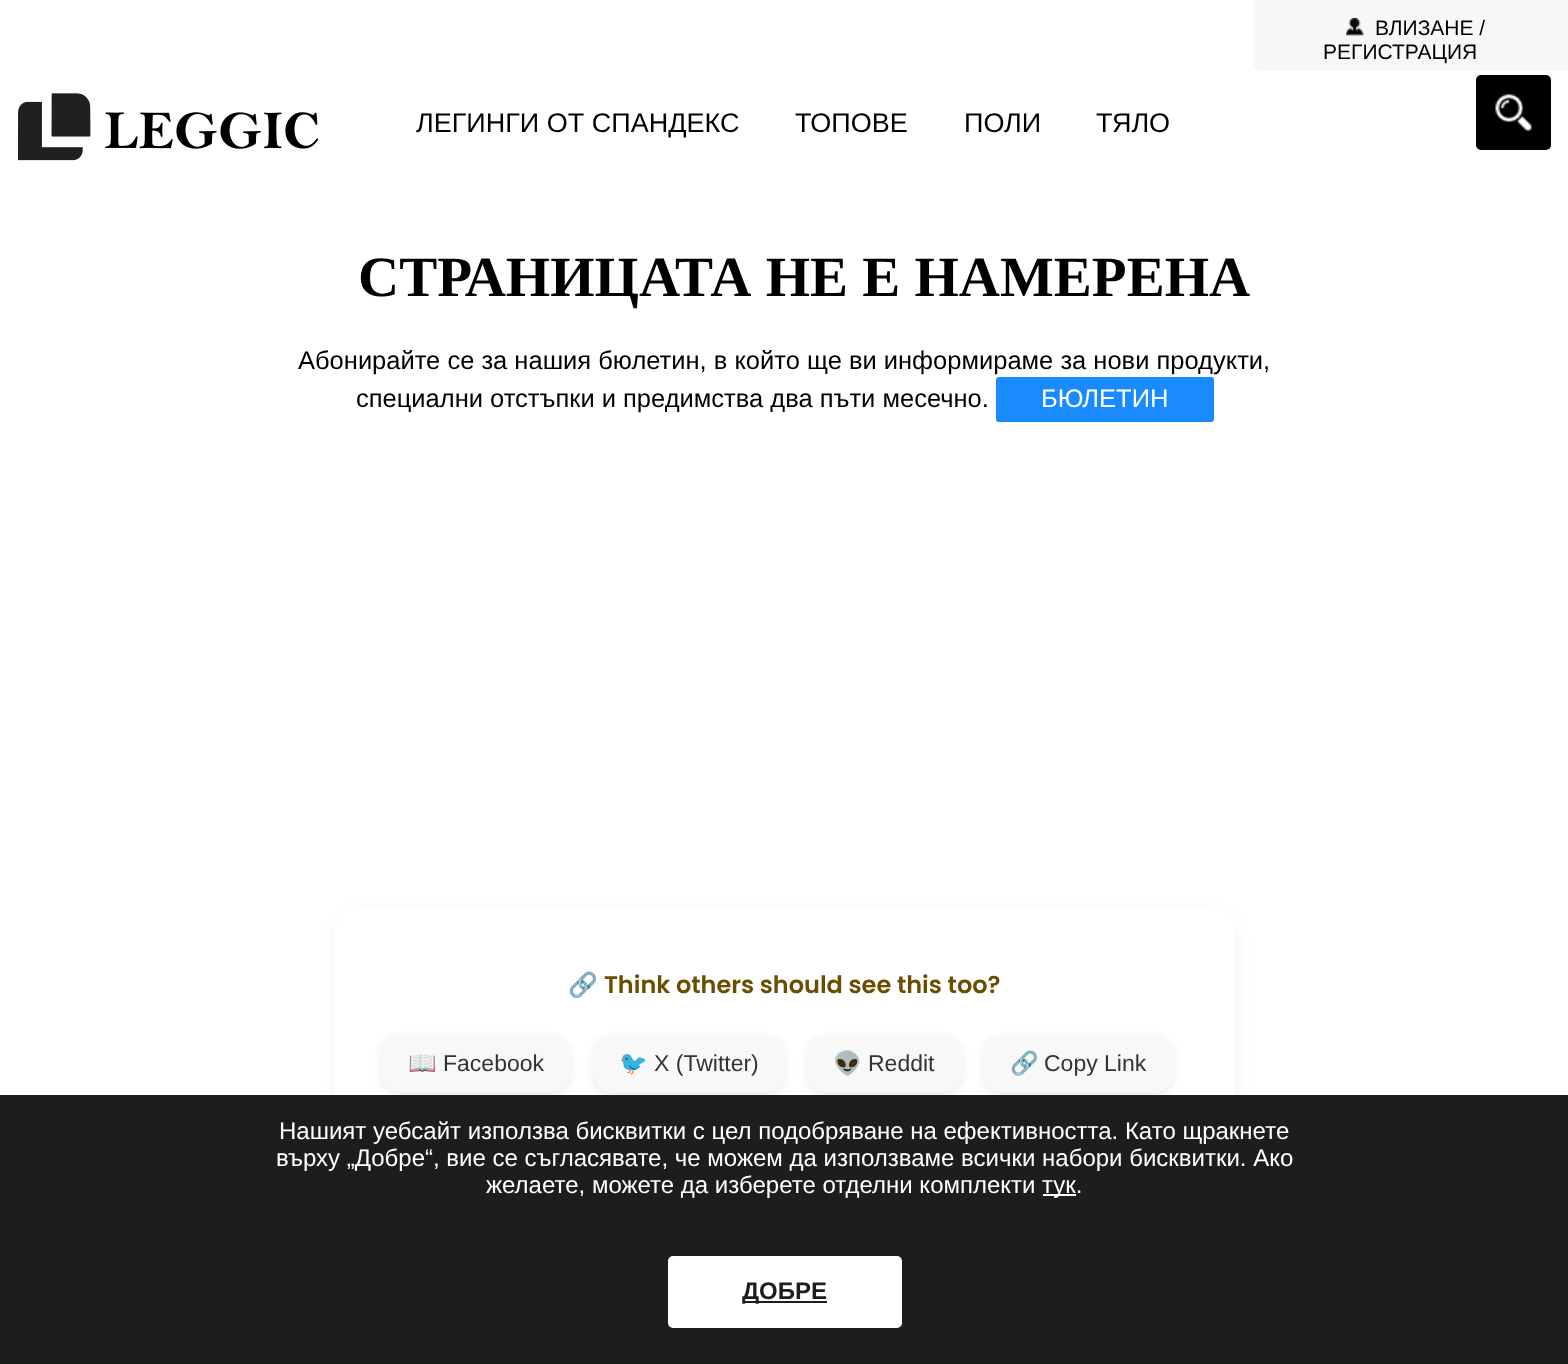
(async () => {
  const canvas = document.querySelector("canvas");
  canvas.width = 1568;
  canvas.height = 1364;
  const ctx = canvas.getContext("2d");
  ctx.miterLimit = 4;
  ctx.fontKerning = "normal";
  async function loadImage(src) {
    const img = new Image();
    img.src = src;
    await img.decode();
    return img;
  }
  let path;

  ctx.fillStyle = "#ffffff";
  ctx.fillRect(0, 0, 1568, 1364);
  ctx.fillStyle = "#f7f7f7";
  path = new Path2D("M1254 0H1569V71H1262C1257.5 71 1254 67.5 1254 63Z");
  ctx.fill(path);
  ctx.drawImage(await loadImage("img/1.png"), 1346, 18, 18, 18);
  ctx.drawImage(await loadImage("img/2.png"), 18, 93, 300, 68);
  ctx.fillStyle = "#000000";
  ctx.beginPath();
  ctx.roundRect(1476, 75, 75, 75, 5);
  ctx.fill();
  ctx.drawImage(await loadImage("img/3.png"), 1495, 94, 37, 37);
  ctx.fillStyle = "#198bfe";
  ctx.beginPath();
  ctx.roundRect(996, 377, 218, 45, 3);
  ctx.fill();
  ctx.fillStyle = "rgba(0, 0, 0, 0.05)";
  ctx.filter = "blur(9px)";
  ctx.beginPath();
  ctx.roundRect(335, 914, 900, 228, 24);
  ctx.fill();
  ctx.filter = "none";
  ctx.fillStyle = "#ffffff";
  ctx.beginPath();
  ctx.roundRect(335, 908, 900, 228, 24);
  ctx.fill();
  ctx.fillStyle = "rgba(0, 0, 0, 0.08)";
  ctx.filter = "blur(4.5px)";
  ctx.beginPath();
  ctx.roundRect(381, 1038, 189, 57, 18);
  ctx.fill();
  ctx.filter = "none";
  ctx.fillStyle = "#f8f8f8";
  ctx.beginPath();
  ctx.roundRect(381, 1035, 189, 57, 18);
  ctx.fill();
  ctx.fillStyle = "rgba(0, 0, 0, 0.08)";
  ctx.filter = "blur(4.5px)";
  ctx.beginPath();
  ctx.roundRect(593, 1038, 192, 57, 18);
  ctx.fill();
  ctx.filter = "none";
  ctx.fillStyle = "#f8f8f8";
  ctx.beginPath();
  ctx.roundRect(593, 1035, 192, 57, 18);
  ctx.fill();
  ctx.fillStyle = "rgba(0, 0, 0, 0.08)";
  ctx.filter = "blur(4.5px)";
  ctx.beginPath();
  ctx.roundRect(807, 1038, 155, 57, 18);
  ctx.fill();
  ctx.filter = "none";
  ctx.fillStyle = "#f8f8f8";
  ctx.beginPath();
  ctx.roundRect(807, 1035, 155, 57, 18);
  ctx.fill();
  ctx.fillStyle = "rgba(0, 0, 0, 0.08)";
  ctx.filter = "blur(4.5px)";
  ctx.beginPath();
  ctx.roundRect(983, 1038, 190, 57, 18);
  ctx.fill();
  ctx.filter = "none";
  ctx.fillStyle = "#f8f8f8";
  ctx.beginPath();
  ctx.roundRect(983, 1035, 190, 57, 18);
  ctx.fill();
  ctx.fillStyle = "#1d1d1d";
  ctx.fillRect(0, 1095, 1568, 269);
  ctx.fillStyle = "#ffffff";
  ctx.fillRect(1043, 1194, 33, 2);
  ctx.beginPath();
  ctx.roundRect(668, 1256, 234, 72, 5);
  ctx.fill();
  ctx.fillStyle = "#1d1d1d";
  ctx.fillRect(743, 1301, 84, 2);
  ctx.font = "21px Liberation Sans";
  ctx.fillStyle = "#000000";
  ctx.fillText("ВЛИЗАНЕ /", 1375, 35);
  ctx.fillText("РЕГИСТРАЦИЯ", 1323, 59);
  ctx.font = "27px Liberation Sans";
  for (const [text, x, y] of [
    ["ЛЕГИНГИ ОТ СПАНДЕКС", 416, 132],
    ["ТОПОВЕ", 795, 132],
    ["ПОЛИ", 964, 132],
    ["ТЯЛО", 1096, 132],
  ]) {
    ctx.fillText(text, x, y);
  }
  ctx.font = "bold 57px Liberation Serif";
  ctx.fillText("СТРАНИЦАТА НЕ Е НАМЕРЕНА", 358, 296);
  ctx.font = "25.5px Liberation Sans";
  ctx.fillText("Абонирайте се за нашия бюлетин, в който ще ви информираме за нови продукти,", 298, 369);
  ctx.fillText("специални отстъпки и предимства два пъти месечно.", 356, 407);
  ctx.fillStyle = "#ffffff";
  ctx.fillText("БЮЛЕТИН", 1041, 407);
  ctx.font = "bold 24px Noto Color Emoji";
  ctx.fillStyle = "#6a4d00";
  ctx.fillText("🔗", 568, 993);
  ctx.font = "600 24px Poppins";
  ctx.fillText("Think others should see this too?", 604, 993);
  ctx.font = "23px Noto Color Emoji";
  ctx.fillStyle = "#333333";
  ctx.fillText("📖", 408, 1071);
  ctx.font = "23px Liberation Sans";
  ctx.fillText("Facebook", 443, 1071);
  ctx.font = "23px Noto Color Emoji";
  ctx.fillText("🐦", 619, 1071);
  ctx.font = "23px Liberation Sans";
  ctx.fillText("X (Twitter)", 654, 1071);
  ctx.font = "23px Noto Color Emoji";
  ctx.fillText("👽", 833, 1071);
  ctx.font = "23px Liberation Sans";
  ctx.fillText("Reddit", 868, 1071);
  ctx.font = "23px Noto Color Emoji";
  ctx.fillText("🔗", 1010, 1071);
  ctx.font = "23px Liberation Sans";
  ctx.fillText("Copy Link", 1044, 1071);
  ctx.font = "24px Liberation Sans";
  ctx.fillStyle = "#ffffff";
  for (const [text, x, y] of [
    ["Нашият уебсайт използва бисквитки с цел подобряване на ефективността. Като щракнете", 279, 1139],
    ["върху „Добре“, вие се съгласявате, че можем да използваме всички набори бисквитки. Ако", 276, 1166],
    ["желаете, можете да изберете отделни комплекти", 486, 1193],
    ["тук.", 1042, 1193],
  ]) {
    ctx.fillText(text, x, y);
  }
  ctx.font = "bold 24px Liberation Sans";
  ctx.fillStyle = "#1d1d1d";
  ctx.fillText("ДОБРЕ", 742, 1299);
})();
